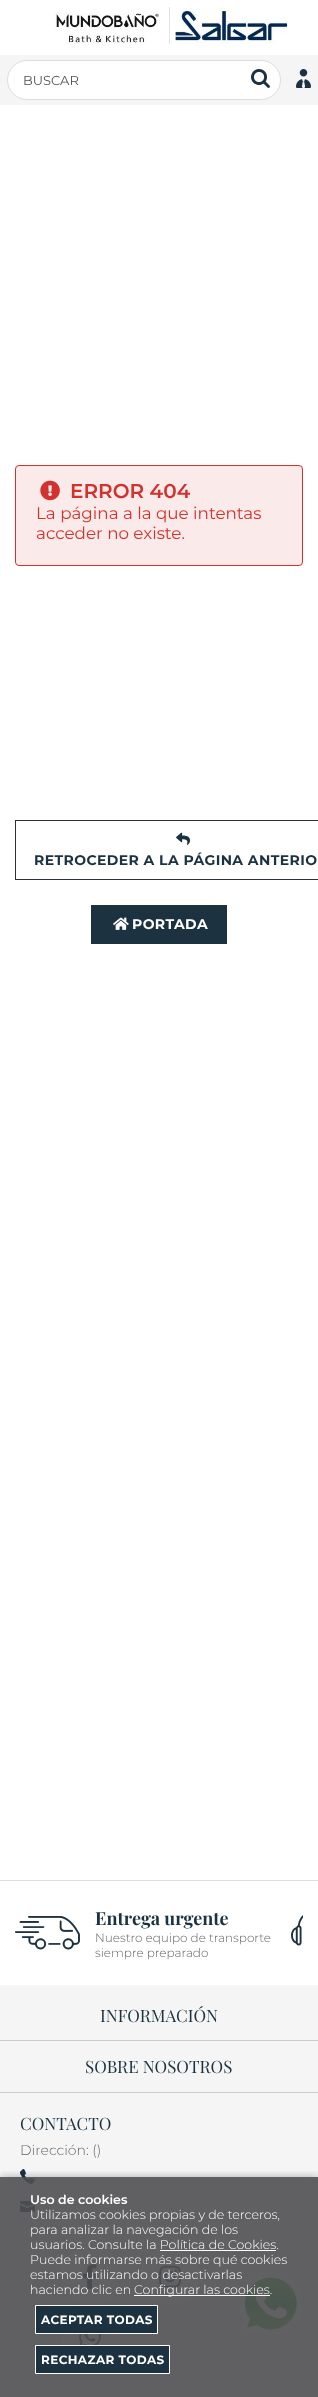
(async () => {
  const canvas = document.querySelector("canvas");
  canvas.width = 318;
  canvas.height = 2397;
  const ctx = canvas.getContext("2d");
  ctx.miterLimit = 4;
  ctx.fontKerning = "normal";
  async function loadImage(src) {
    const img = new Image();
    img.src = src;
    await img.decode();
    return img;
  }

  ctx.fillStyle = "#ffffff";
  ctx.fillRect(0, 0, 318, 2397);
  ctx.fillStyle = "#f5f5f6";
  ctx.fillRect(0, 55, 318, 50);
  ctx.drawImage(await loadImage("img/1.png"), 54, 13, 105, 31);
  ctx.fillStyle = "#e2e2e2";
  ctx.fillRect(169, 7, 1, 37);
  ctx.drawImage(await loadImage("img/2.png"), 175, 7, 113, 37);
  ctx.fillStyle = "#ffffff";
  ctx.beginPath();
  ctx.roundRect(7.5, 60.5, 273, 39, 19.5);
  ctx.fill();
  ctx.strokeStyle = "#dddddd";
  ctx.stroke();
  ctx.drawImage(await loadImage("img/3.png"), 251, 69, 19, 19);
  ctx.drawImage(await loadImage("img/4.png"), 296, 69, 15, 19);
  ctx.fillStyle = "#faebea";
  ctx.beginPath();
  ctx.roundRect(15.5, 465.5, 287, 100, 3.5);
  ctx.fill();
  ctx.strokeStyle = "#d2322d";
  ctx.stroke();
  ctx.drawImage(await loadImage("img/5.png"), 40, 480, 20, 21);
  ctx.strokeStyle = "#2e3036";
  ctx.strokeRect(15.5, 820.5, 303, 59);
  ctx.drawImage(await loadImage("img/6.png"), 176, 832, 14, 13);
  ctx.fillStyle = "#1c3241";
  ctx.fillRect(91, 905, 136, 39);
  ctx.drawImage(await loadImage("img/7.png"), 113, 917, 16, 13);
  ctx.fillStyle = "#dddddd";
  ctx.fillRect(0, 1880, 318, 1);
  ctx.drawImage(await loadImage("img/8.png"), 15, 1916, 65, 34);
  ctx.drawImage(await loadImage("img/9.png"), 291, 1915, 12, 31);
  for (const [x, y, w, h, color] of [
    [0, 1985, 318, 412, "#f5f5f6"],
    [0, 2040, 318, 1, "#cccccc"],
    [0, 2092, 318, 1, "#cccccc"],
  ]) {
    ctx.fillStyle = color;
    ctx.fillRect(x, y, w, h);
  }
  ctx.drawImage(await loadImage("img/10.png"), 20, 2169, 15, 15);
  ctx.drawImage(await loadImage("img/11.png"), 20, 2201, 15, 11);
  ctx.filter = "blur(1.5px)";
  ctx.beginPath();
  ctx.roundRect(60, 2246, 60, 60, 30);
  ctx.fill();
  ctx.filter = "none";
  ctx.fillStyle = "#ffffff";
  ctx.beginPath();
  ctx.arc(90, 2276, 30, 0, Math.PI * 2);
  ctx.fill();
  ctx.drawImage(await loadImage("img/12.png"), 83, 2264, 14, 26);
  ctx.fillStyle = "#cccccc";
  ctx.filter = "blur(1.5px)";
  ctx.beginPath();
  ctx.roundRect(140, 2246, 60, 60, 30);
  ctx.fill();
  ctx.filter = "none";
  ctx.fillStyle = "#ffffff";
  ctx.beginPath();
  ctx.arc(170, 2276, 30, 0, Math.PI * 2);
  ctx.fill();
  ctx.drawImage(await loadImage("img/13.png"), 159, 2265, 22, 23);
  ctx.fillStyle = "#cccccc";
  ctx.filter = "blur(1.5px)";
  ctx.beginPath();
  ctx.roundRect(60, 2306, 60, 60, 30);
  ctx.fill();
  ctx.filter = "none";
  ctx.fillStyle = "#ffffff";
  ctx.beginPath();
  ctx.arc(90, 2336, 30, 0, Math.PI * 2);
  ctx.fill();
  ctx.drawImage(await loadImage("img/14.png"), 79, 2334, 22, 11);
  ctx.drawImage(await loadImage("img/15.png"), 239, 2272, 63, 64);
  ctx.save();
  ctx.beginPath();
  ctx.rect(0, 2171, 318, 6);
  ctx.clip();
  ctx.fillStyle = "rgba(0, 0, 0, 0.3)";
  ctx.filter = "blur(4px)";
  ctx.beginPath();
  ctx.rect(0, 2177, 318, 220);
  ctx.fill();
  ctx.filter = "none";
  ctx.restore();
  for (const [x, y, w, h, color] of [
    [0, 2177, 318, 220, "rgba(80, 80, 82, 0.9)"],
    [160, 2250, 116, 1, "#ffffff"],
    [134, 2295, 136, 1, "#ffffff"],
  ]) {
    ctx.fillStyle = color;
    ctx.fillRect(x, y, w, h);
  }
  ctx.fillStyle = "#1c3241";
  ctx.beginPath();
  ctx.rect(35.5, 2305.5, 122, 28);
  ctx.fill();
  ctx.strokeStyle = "#ffffff";
  ctx.stroke();
  ctx.beginPath();
  ctx.rect(35.5, 2345.5, 134, 28);
  ctx.fill();
  ctx.stroke();
  ctx.font = "13px Montserrat";
  ctx.fillStyle = "#525252";
  ctx.fillText("BUSCAR", 23, 85);
  ctx.font = "600 20px Montserrat";
  ctx.fillStyle = "#d2322d";
  ctx.fillText("ERROR 404", 70, 498);
  ctx.font = "16.75px Montserrat";
  ctx.fillText("La página a la que intentas", 36, 519);
  ctx.fillText("acceder no existe.", 36, 539);
  ctx.letterSpacing = "0.4px";
  ctx.font = "bold 14px Montserrat";
  ctx.fillStyle = "#1b3240";
  ctx.fillText("RETROCEDER A LA PÁGINA ANTERIO", 34, 865);
  ctx.fillStyle = "#ffffff";
  ctx.fillText("PORTADA", 132, 929);
  ctx.letterSpacing = "0px";
  ctx.font = "bold 18px Playfair Display";
  ctx.fillStyle = "#1b3240";
  ctx.fillText("Entrega urgente", 95, 1925);
  ctx.font = "300 12px Montserrat";
  ctx.fillStyle = "#666666";
  ctx.fillText("Nuestro equipo de transporte", 95, 1942);
  ctx.fillText("siempre preparado", 95, 1957);
  ctx.font = "17px Playfair Display";
  ctx.fillStyle = "#1b3240";
  for (const [text, x, y] of [
    ["INFORMACIÓN", 100, 2022],
    ["SOBRE NOSOTROS", 85, 2073],
    ["CONTACTO", 20, 2130],
  ]) {
    ctx.fillText(text, x, y);
  }
  ctx.font = "300 14px Montserrat";
  ctx.fillStyle = "#666666";
  ctx.fillText("Dirección: ()", 20, 2155);
  ctx.font = "600 12.6px Montserrat";
  ctx.fillStyle = "#ffffff";
  ctx.fillText("Uso de cookies", 30, 2204);
  ctx.font = "300 12.6px Montserrat";
  for (const [text, x, y] of [
    ["Utilizamos cookies propias y de terceros,", 30, 2219],
    ["para analizar la navegación de los", 30, 2234],
    ["usuarios. Consulte la Política de Cookies.", 30, 2249],
    ["Puede informarse más sobre qué cookies", 30, 2264],
    ["estamos utilizando o desactivarlas", 30, 2279],
    ["haciendo clic en", 30, 2294],
    ["Configurar las cookies.", 134, 2294],
  ]) {
    ctx.fillText(text, x, y);
  }
  ctx.letterSpacing = "0.4px";
  ctx.font = "bold 12px Montserrat";
  ctx.fillText("ACEPTAR TODAS", 41, 2324);
  ctx.fillText("RECHAZAR TODAS", 41, 2364);
})();
